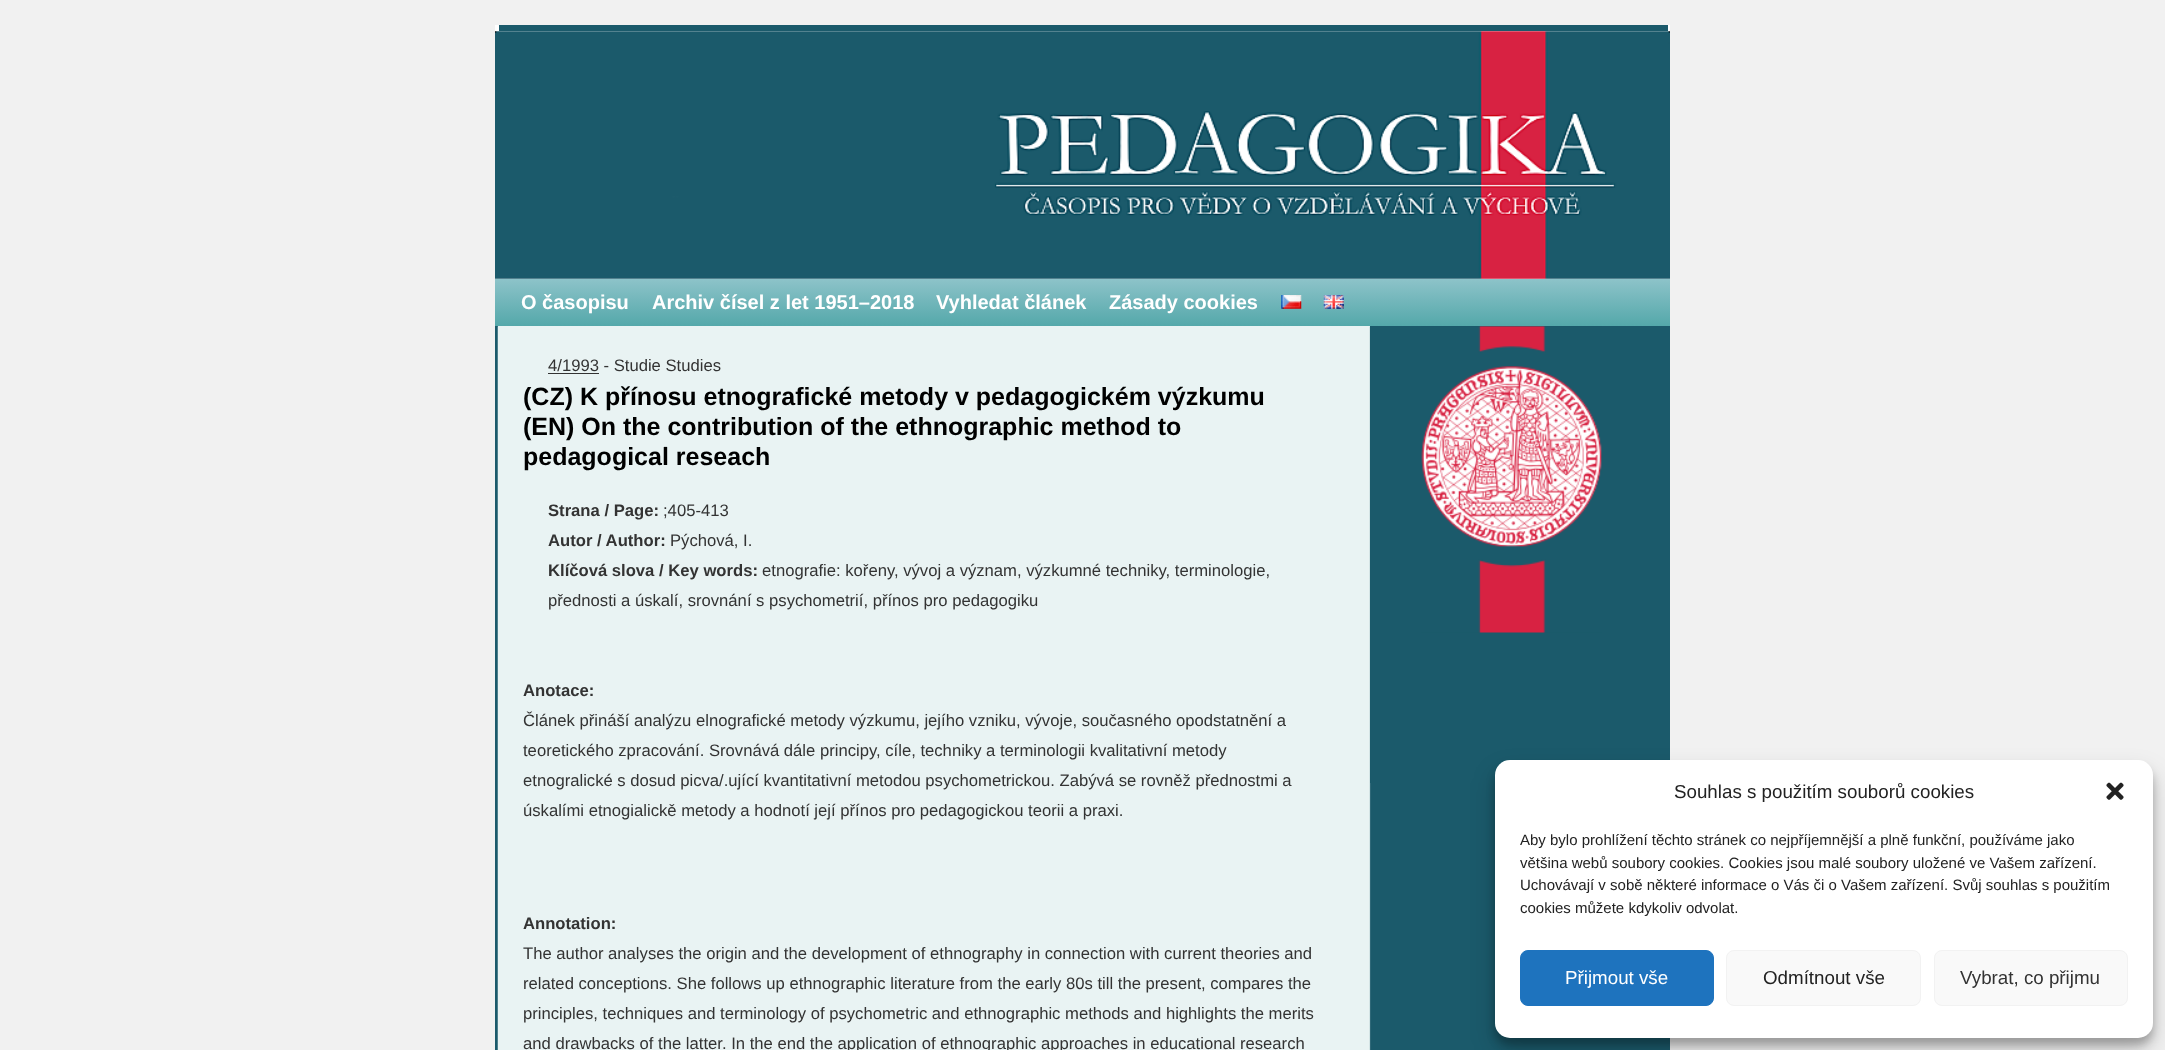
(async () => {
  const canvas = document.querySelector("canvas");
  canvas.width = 2165;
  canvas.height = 1050;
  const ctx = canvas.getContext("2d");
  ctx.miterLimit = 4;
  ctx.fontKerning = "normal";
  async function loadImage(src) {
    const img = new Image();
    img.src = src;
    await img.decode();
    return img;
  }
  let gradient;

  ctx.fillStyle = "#f1f1f1";
  ctx.fillRect(0, 0, 2165, 1050);
  ctx.fillStyle = "#ffffff";
  ctx.fillRect(495, 25, 1175, 254);
  ctx.fillStyle = "#1b5a6b";
  ctx.fillRect(499, 25, 1169, 6);
  ctx.drawImage(await loadImage("img/1.png"), 495, 31, 1175, 248);
  gradient = ctx.createLinearGradient(1083, 279, 1083, 326);
  gradient.addColorStop(0, "#8dc3c9");
  gradient.addColorStop(1, "#54a8aa");
  ctx.fillStyle = gradient;
  ctx.fillRect(495, 279, 1175, 47);
  ctx.drawImage(await loadImage("img/2.png"), 1281, 295, 21, 14);
  ctx.drawImage(await loadImage("img/3.png"), 1323, 295, 21, 14);
  ctx.fillStyle = "#e9f3f3";
  ctx.fillRect(498, 326, 872, 1);
  ctx.fillStyle = "#1b5a6b";
  ctx.fillRect(495, 326, 3, 724);
  ctx.drawImage(await loadImage("img/4.png"), 497, 326, 1173, 724);
  ctx.fillStyle = "#333333";
  ctx.fillRect(548, 373, 51, 1);
  ctx.fillStyle = "#1b5a6b";
  ctx.fillRect(1370, 326, 300, 457);
  ctx.drawImage(await loadImage("img/5.png"), 1421, 326, 181, 307);
  ctx.fillStyle = "rgba(0, 0, 0, 0.23)";
  ctx.filter = "blur(4px)";
  ctx.beginPath();
  ctx.roundRect(1495, 768, 658, 277, 15);
  ctx.fill();
  ctx.filter = "none";
  ctx.fillStyle = "rgba(0, 0, 0, 0.19)";
  ctx.filter = "blur(12.5px)";
  ctx.beginPath();
  ctx.roundRect(1495, 773, 658, 277, 15);
  ctx.fill();
  ctx.filter = "none";
  ctx.fillStyle = "#ffffff";
  ctx.beginPath();
  ctx.roundRect(1495, 760, 658, 278, 15);
  ctx.fill();
  ctx.drawImage(await loadImage("img/6.png"), 2106, 782, 18, 18);
  ctx.fillStyle = "#1e73be";
  ctx.beginPath();
  ctx.roundRect(1520.5, 950.5, 193, 55, 7.5);
  ctx.fill();
  ctx.strokeStyle = "#1e73be";
  ctx.stroke();
  ctx.fillStyle = "#f9f9f9";
  ctx.beginPath();
  ctx.roundRect(1726.5, 950.5, 194, 55, 7.5);
  ctx.fill();
  ctx.strokeStyle = "#f2f2f2";
  ctx.stroke();
  ctx.beginPath();
  ctx.roundRect(1934.5, 950.5, 193, 55, 7.5);
  ctx.fill();
  ctx.stroke();
  ctx.font = "bold 20px Liberation Sans";
  ctx.fillStyle = "#ffffff";
  for (const [text, x, y] of [
    ["O časopisu", 521, 309],
    ["Archiv čísel z let 1951–2018", 652, 309],
    ["Vyhledat článek", 936, 309],
    ["Zásady cookies", 1109, 309],
  ]) {
    ctx.fillText(text, x, y);
  }
  ctx.font = "16.65px Liberation Sans";
  ctx.fillStyle = "#333333";
  ctx.fillText("4/1993 - Studie Studies", 548, 371);
  ctx.font = "bold 25px Liberation Sans";
  ctx.fillStyle = "#000000";
  for (const [text, x, y] of [
    ["(CZ) K přínosu etnografické metody v pedagogickém výzkumu", 523, 405],
    ["(EN) On the contribution of the ethnographic method to", 523, 435],
    ["pedagogical reseach", 523, 465],
  ]) {
    ctx.fillText(text, x, y);
  }
  ctx.font = "bold 16.65px Liberation Sans";
  ctx.fillStyle = "#333333";
  ctx.fillText("Strana / Page:", 548, 516);
  ctx.font = "16.65px Liberation Sans";
  ctx.fillText(";405-413", 663, 516);
  ctx.font = "bold 16.65px Liberation Sans";
  ctx.fillText("Autor / Author:", 548, 546);
  ctx.font = "16.65px Liberation Sans";
  ctx.fillText("Pýchová, I.", 670, 546);
  ctx.font = "bold 16.65px Liberation Sans";
  ctx.fillText("Klíčová slova / Key words:", 548, 576);
  ctx.font = "16.65px Liberation Sans";
  ctx.fillText("etnografie: kořeny, vývoj a význam, výzkumné techniky, terminologie,", 762, 576);
  ctx.fillText("přednosti a úskalí, srovnání s psychometrií, přínos pro pedagogiku", 548, 606);
  ctx.font = "bold 16.65px Liberation Sans";
  ctx.fillText("Anotace:", 523, 696);
  ctx.font = "16.65px Liberation Sans";
  for (const [text, x, y] of [
    ["Článek přináší analýzu elnografické metody výzkumu, jejího vzniku, vývoje, současného opodstatnění a", 523, 726],
    ["teoretického zpracování. Srovnává dále principy, cíle, techniky a terminologii kvalitativní metody", 523, 756],
    ["etnogralické s dosud picva/.ující kvantitativní metodou psychometrickou. Zabývá se rovněž přednostmi a", 523, 786],
    ["úskalími etnogialickě metody a hodnotí její přínos pro pedagogickou teorii a praxi.", 523, 816],
  ]) {
    ctx.fillText(text, x, y);
  }
  ctx.font = "bold 16.65px Liberation Sans";
  ctx.fillText("Annotation:", 523, 929);
  ctx.font = "16.65px Liberation Sans";
  for (const [text, x, y] of [
    ["The author analyses the origin and the development of ethnography in connection with current theories and", 523, 959],
    ["related conceptions. She follows up ethnographic literature from the early 80s till the present, compares the", 523, 989],
    ["principles, techniques and terminology of psychometric and ethnographic methods and highlights the merits", 523, 1019],
    ["and drawbacks of the latter. In the end the application of ethnographic approaches in educational research", 523, 1049],
  ]) {
    ctx.fillText(text, x, y);
  }
  ctx.font = "18.75px Liberation Sans";
  ctx.fillStyle = "#222222";
  ctx.fillText("Souhlas s použitím souborů cookies", 1674, 798);
  ctx.font = "15px Liberation Sans";
  for (const [text, x, y] of [
    ["Aby bylo prohlížení těchto stránek co nejpříjemnější a plně funkční, používáme jako", 1520, 845],
    ["většina webů soubory cookies. Cookies jsou malé soubory uložené ve Vašem zařízení.", 1520, 868],
    ["Uchovávají v sobě některé informace o Vás či o Vašem zařízení. Svůj souhlas s použitím", 1520, 890],
    ["cookies můžete kdykoliv odvolat.", 1520, 913],
  ]) {
    ctx.fillText(text, x, y);
  }
  ctx.font = "18.75px Liberation Sans";
  ctx.fillStyle = "#ffffff";
  ctx.fillText("Přijmout vše", 1565, 984);
  ctx.fillStyle = "#222222";
  ctx.fillText("Odmítnout vše", 1763, 984);
  ctx.fillStyle = "#333333";
  ctx.fillText("Vybrat, co přijmu", 1960, 984);
})();
